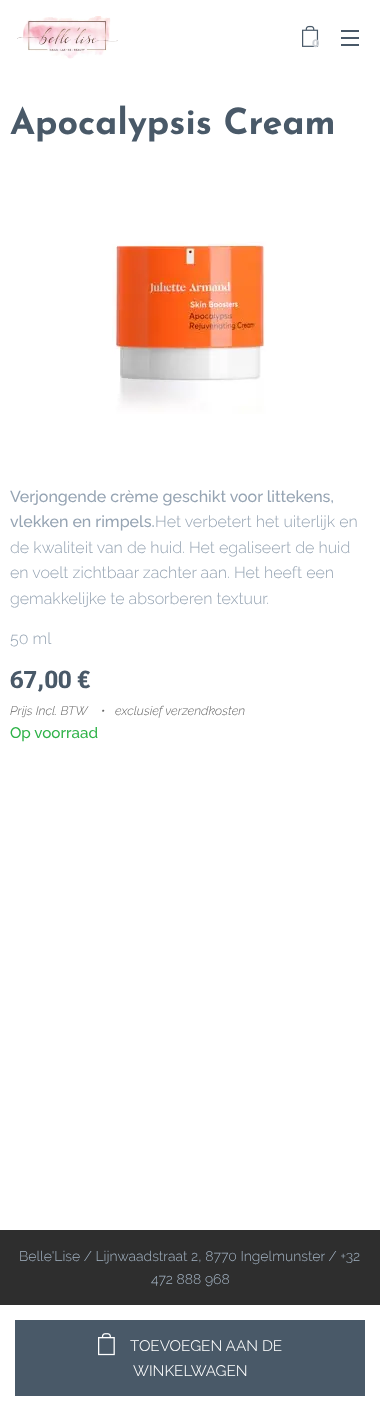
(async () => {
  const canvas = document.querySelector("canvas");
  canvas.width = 380;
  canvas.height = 1411;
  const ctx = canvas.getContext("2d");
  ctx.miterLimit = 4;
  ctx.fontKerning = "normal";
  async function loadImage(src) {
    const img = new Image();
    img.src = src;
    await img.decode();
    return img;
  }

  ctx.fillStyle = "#ffffff";
  ctx.fillRect(0, 0, 380, 1411);
  ctx.drawImage(await loadImage("img/1.png"), 17, 16, 101, 43);
  ctx.drawImage(await loadImage("img/2.png"), 302, 25, 17, 22);
  for (const [x, y, w, h, color] of [
    [341, 37, 18, 2, "#495968"],
    [341, 30, 18, 2, "#495968"],
    [341, 44, 18, 2, "#495968"],
  ]) {
    ctx.fillStyle = color;
    ctx.fillRect(x, y, w, h);
  }
  ctx.drawImage(await loadImage("img/3.png"), 112, 241, 155, 173);
  ctx.fillRect(15, 1320, 350, 76);
  ctx.drawImage(await loadImage("img/4.png"), 98, 1333, 17, 23);
  ctx.fillStyle = "#2e2e2e";
  ctx.fillRect(0, 1230, 380, 75);
  ctx.font = "bold 11px Montserrat";
  ctx.fillStyle = "#ccd0d5";
  ctx.fillText("0", 312, 47);
  ctx.font = "bold 36px Josefin Sans";
  ctx.fillStyle = "#495968";
  ctx.fillText("Apocalypsis Cream", 10, 134);
  ctx.font = "500 16px Raleway";
  ctx.fillStyle = "#96a4b3";
  ctx.fillText("Verjongende crème geschikt voor littekens,", 10, 502);
  ctx.fillText("vlekken en rimpels.", 10, 527);
  ctx.font = "300 16px Raleway";
  for (const [text, x, y] of [
    ["Het verbetert het uiterlijk en", 155, 527],
    ["de kwaliteit van de huid. Het egaliseert de huid", 10, 553],
    ["en voelt zichtbaar zachter aan. Het heeft een", 10, 578],
    ["gemakkelijke te absorberen textuur.", 10, 604],
    ["50 ml", 10, 644],
  ]) {
    ctx.fillText(text, x, y);
  }
  ctx.font = "bold 24px Roboto Flex";
  ctx.fillStyle = "#495968";
  ctx.fillText("67,00 €", 10, 688);
  ctx.font = "italic 300 12.5px Raleway";
  ctx.fillStyle = "#666666";
  for (const [text, x, y] of [
    ["Prijs Incl. BTW", 10, 715],
    ["•", 101, 715],
    ["exclusief verzendkosten", 115, 715],
  ]) {
    ctx.fillText(text, x, y);
  }
  ctx.font = "500 15.25px Raleway";
  ctx.fillStyle = "#2db247";
  ctx.fillText("Op voorraad", 10, 738);
  ctx.font = "300 15.25px 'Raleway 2'";
  ctx.fillStyle = "#ffffff";
  ctx.fillText("TOEVOEGEN AAN DE", 130, 1351);
  ctx.fillText("WINKELWAGEN", 133, 1376);
  ctx.font = "300 14px Raleway";
  ctx.fillStyle = "#a3b3c3";
  ctx.fillText("Belle'Lise / Lijnwaadstraat 2, 8770 Ingelmunster / +32", 19, 1261);
  ctx.fillText("472 888 968", 151, 1284);
})();
